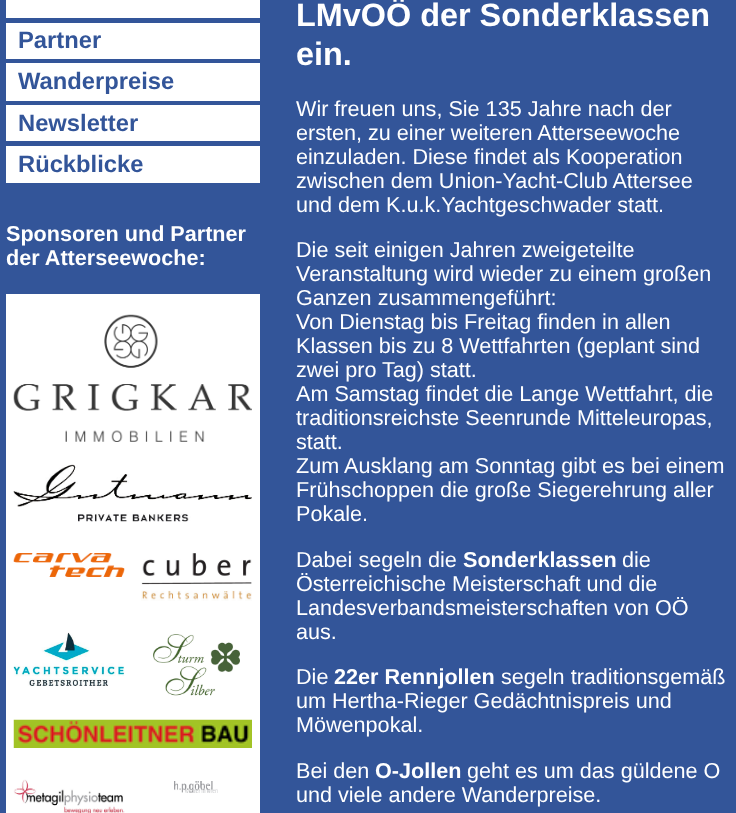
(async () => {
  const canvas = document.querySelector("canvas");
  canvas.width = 736;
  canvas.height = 813;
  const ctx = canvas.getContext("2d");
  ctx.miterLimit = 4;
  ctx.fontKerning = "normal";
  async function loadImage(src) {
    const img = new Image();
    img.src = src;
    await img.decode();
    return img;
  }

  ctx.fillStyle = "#335599";
  ctx.fillRect(0, 0, 736, 813);
  for (const [x, y, w, h, color] of [
    [6, 0, 254, 18, "#ffffff"],
    [6, 23, 254, 36, "#ffffff"],
    [6, 63, 254, 38, "#ffffff"],
    [6, 105, 254, 36, "#ffffff"],
    [6, 146, 254, 37, "#ffffff"],
    [6, 294, 254, 519, "#ffffff"],
  ]) {
    ctx.fillStyle = color;
    ctx.fillRect(x, y, w, h);
  }
  ctx.drawImage(await loadImage("img/1.png"), 13, 314, 239, 128);
  ctx.drawImage(await loadImage("img/2.png"), 13, 464, 239, 58);
  ctx.drawImage(await loadImage("img/3.png"), 13, 553, 112, 24);
  ctx.drawImage(await loadImage("img/4.png"), 141, 553, 111, 48);
  ctx.drawImage(await loadImage("img/5.png"), 13, 632, 112, 54);
  ctx.drawImage(await loadImage("img/6.png"), 153, 634, 87, 62);
  ctx.drawImage(await loadImage("img/7.png"), 13, 719, 239, 29);
  ctx.drawImage(await loadImage("img/8.png"), 13, 779, 112, 34);
  ctx.drawImage(await loadImage("img/9.png"), 174, 781, 44, 12);
  ctx.font = "bold 23.75px Liberation Sans";
  ctx.fillStyle = "#335599";
  for (const [text, x, y] of [
    ["Partner", 18, 48],
    ["Wanderpreise", 18, 89],
    ["Newsletter", 18, 131],
    ["Rückblicke", 18, 172],
  ]) {
    ctx.fillText(text, x, y);
  }
  ctx.font = "bold 21.6px Liberation Sans";
  ctx.fillStyle = "#ffffff";
  ctx.fillText("Sponsoren und Partner", 6, 241);
  ctx.fillText("der Atterseewoche:", 6, 265);
  ctx.font = "bold 32.4px Liberation Sans";
  ctx.fillText("LMvOÖ der Sonderklassen", 296, 26);
  ctx.fillText("ein.", 296, 65);
  ctx.font = "21.6px Liberation Sans";
  for (const [text, x, y] of [
    ["Wir freuen uns, Sie 135 Jahre nach der", 296, 116],
    ["ersten, zu einer weiteren Atterseewoche", 296, 140],
    ["einzuladen. Diese findet als Kooperation", 296, 164],
    ["zwischen dem Union-Yacht-Club Attersee", 296, 188],
    ["und dem K.u.k.Yachtgeschwader statt.", 296, 212],
    ["Die seit einigen Jahren zweigeteilte", 296, 257],
    ["Veranstaltung wird wieder zu einem großen", 296, 281],
    ["Ganzen zusammengeführt:", 296, 305],
    ["Von Dienstag bis Freitag finden in allen", 296, 329],
    ["Klassen bis zu 8 Wettfahrten (geplant sind", 296, 353],
    ["zwei pro Tag) statt.", 296, 377],
    ["Am Samstag findet die Lange Wettfahrt, die", 296, 401],
    ["traditionsreichste Seenrunde Mitteleuropas,", 296, 425],
    ["statt.", 296, 449],
    ["Zum Ausklang am Sonntag gibt es bei einem", 296, 473],
    ["Frühschoppen die große Siegerehrung aller", 296, 497],
    ["Pokale.", 296, 521],
    ["Dabei segeln die", 296, 567],
  ]) {
    ctx.fillText(text, x, y);
  }
  ctx.font = "bold 21.6px Liberation Sans";
  ctx.fillText("Sonderklassen", 463, 567);
  ctx.font = "21.6px Liberation Sans";
  for (const [text, x, y] of [
    ["die", 622, 567],
    ["Österreichische Meisterschaft und die", 296, 591],
    ["Landesverbandsmeisterschaften von OÖ", 296, 615],
    ["aus.", 296, 639],
    ["Die", 296, 684],
  ]) {
    ctx.fillText(text, x, y);
  }
  ctx.font = "bold 21.6px Liberation Sans";
  ctx.fillText("22er Rennjollen", 334, 684);
  ctx.font = "21.6px Liberation Sans";
  for (const [text, x, y] of [
    ["segeln traditionsgemäß", 501, 684],
    ["um Hertha-Rieger Gedächtnispreis und", 296, 708],
    ["Möwenpokal.", 296, 732],
    ["Bei den", 296, 778],
  ]) {
    ctx.fillText(text, x, y);
  }
  ctx.font = "bold 21.6px Liberation Sans";
  ctx.fillText("O-Jollen", 375, 778);
  ctx.font = "21.6px Liberation Sans";
  ctx.fillText("geht es um das güldene O", 467, 778);
  ctx.fillText("und viele andere Wanderpreise.", 296, 802);
})();
